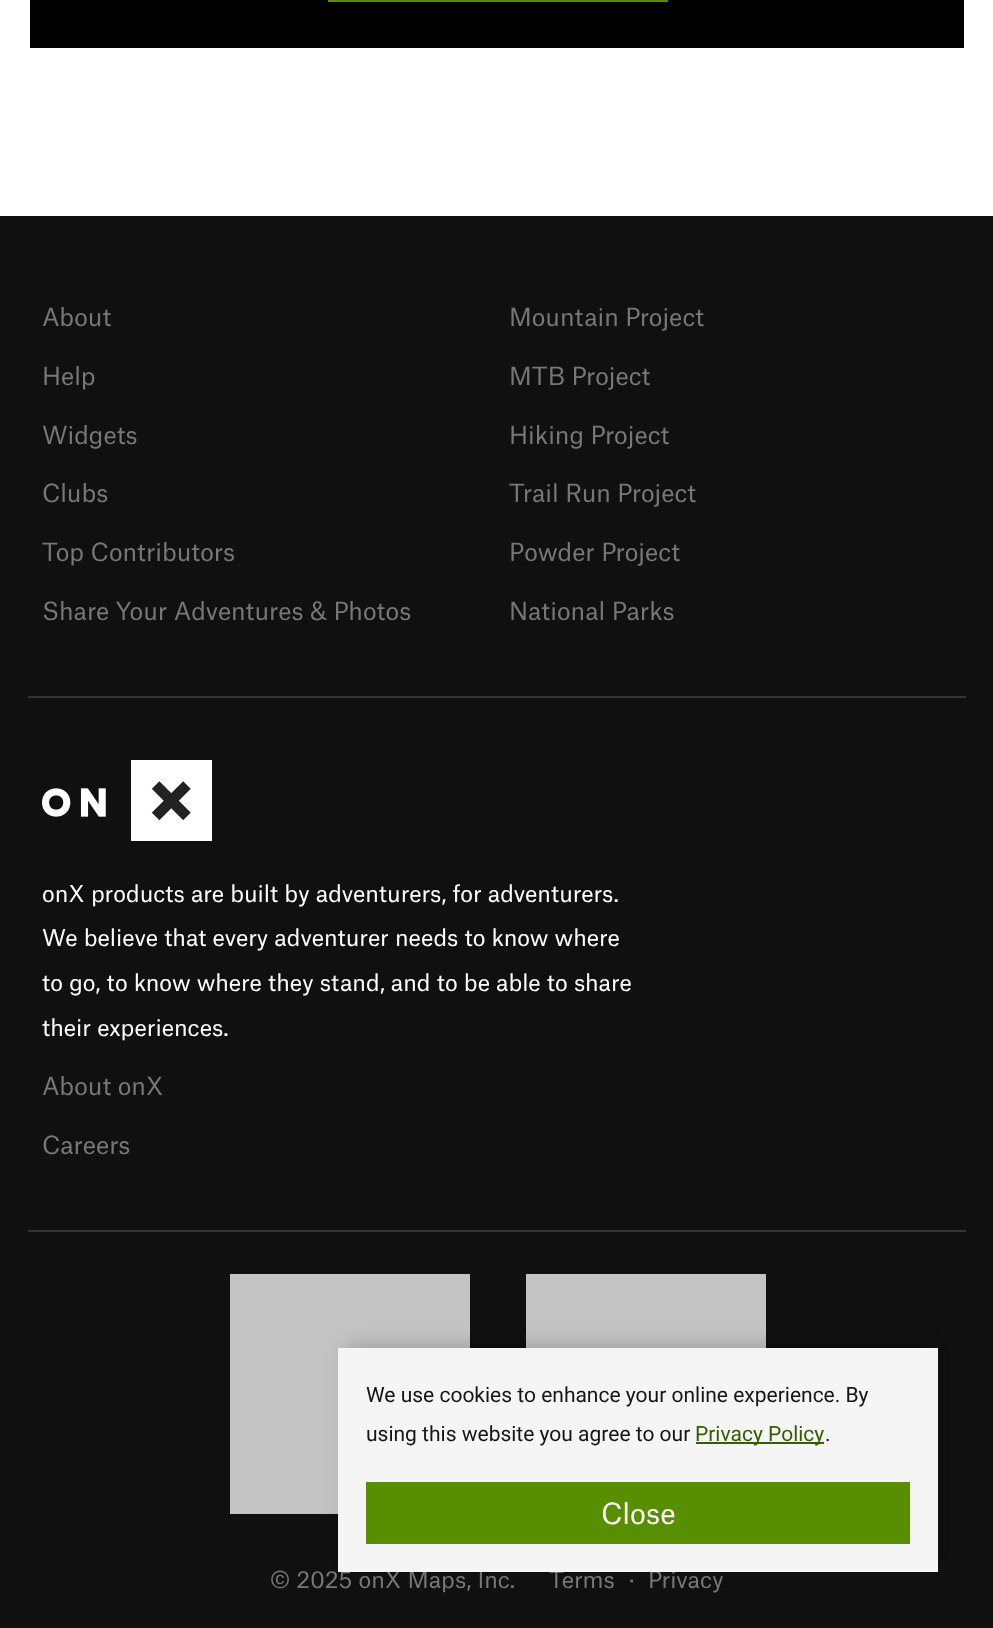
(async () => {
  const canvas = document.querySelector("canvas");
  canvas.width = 993;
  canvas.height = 1628;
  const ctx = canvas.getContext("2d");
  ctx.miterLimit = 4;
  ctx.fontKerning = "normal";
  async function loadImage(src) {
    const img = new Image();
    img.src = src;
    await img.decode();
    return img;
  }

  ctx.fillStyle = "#ffffff";
  ctx.fillRect(0, 0, 993, 1628);
  for (const [x, y, w, h, color] of [
    [30, 0, 934, 48, "#000000"],
    [328, 0, 340, 2, "#588f00"],
    [0, 216, 993, 1412, "#101010"],
    [28, 696, 938, 2, "#333333"],
    [28, 1230, 938, 2, "#333333"],
  ]) {
    ctx.fillStyle = color;
    ctx.fillRect(x, y, w, h);
  }
  ctx.drawImage(await loadImage("img/1.png"), 42, 760, 170, 81);
  ctx.fillStyle = "#c3c3c3";
  ctx.fillRect(230, 1274, 240, 240);
  ctx.fillRect(526, 1274, 240, 74);
  ctx.fillStyle = "rgba(0, 0, 0, 0.25)";
  ctx.filter = "blur(10px)";
  ctx.beginPath();
  ctx.rect(348, 1348, 580, 204);
  ctx.fill();
  ctx.filter = "none";
  ctx.font = "24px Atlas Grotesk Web";
  ctx.fillStyle = "#777777";
  for (const [text, x, y] of [
    ["About", 42, 326],
    ["Mountain Project", 509, 326],
    ["Help", 42, 385],
    ["MTB Project", 509, 385],
    ["Widgets", 42, 444],
    ["Hiking Project", 509, 444],
    ["Clubs", 42, 502],
    ["Trail Run Project", 509, 502],
    ["Top Contributors", 42, 561],
    ["Powder Project", 509, 561],
    ["Share Your Adventures & Photos", 42, 620],
    ["National Parks", 509, 620],
  ]) {
    ctx.fillText(text, x, y);
  }
  ctx.font = "22.4px Atlas Grotesk Web";
  ctx.fillStyle = "#ffffff";
  for (const [text, x, y] of [
    ["onX products are built by adventurers, for adventurers.", 42, 902],
    ["We believe that every adventurer needs to know where", 42, 946],
    ["to go, to know where they stand, and to be able to share", 42, 991],
    ["their experiences.", 42, 1036],
  ]) {
    ctx.fillText(text, x, y);
  }
  ctx.font = "24px Atlas Grotesk Web";
  ctx.fillStyle = "#777777";
  ctx.fillText("About onX", 42, 1095);
  ctx.fillText("Careers", 42, 1154);
  ctx.font = "22.4px Atlas Grotesk Web";
  for (const [text, x, y] of [
    ["© 2025 onX Maps, Inc.", 270, 1588],
    ["Terms", 549, 1588],
    ["·", 629, 1588],
    ["Privacy", 648, 1588],
  ]) {
    ctx.fillText(text, x, y);
  }
  ctx.fillStyle = "#f5f5f5";
  ctx.fillRect(338, 1348, 600, 224);
  ctx.font = "21px Roboto";
  ctx.fillStyle = "#151515";
  ctx.fillText("We use cookies to enhance your online experience. By", 366, 1402);
  ctx.fillText("using this website you agree to our", 366, 1441);
  ctx.fillStyle = "#395c00";
  ctx.fillRect(696, 1442, 128, 2);
  ctx.fillText("Privacy Policy", 695, 1441);
  ctx.fillStyle = "#151515";
  ctx.fillText(".", 825, 1441);
  ctx.fillStyle = "#588f00";
  ctx.fillRect(366, 1482, 544, 62);
  ctx.font = "28px Atlas Grotesk Web";
  ctx.fillStyle = "#ffffff";
  ctx.fillText("Close", 601, 1524);
})();
